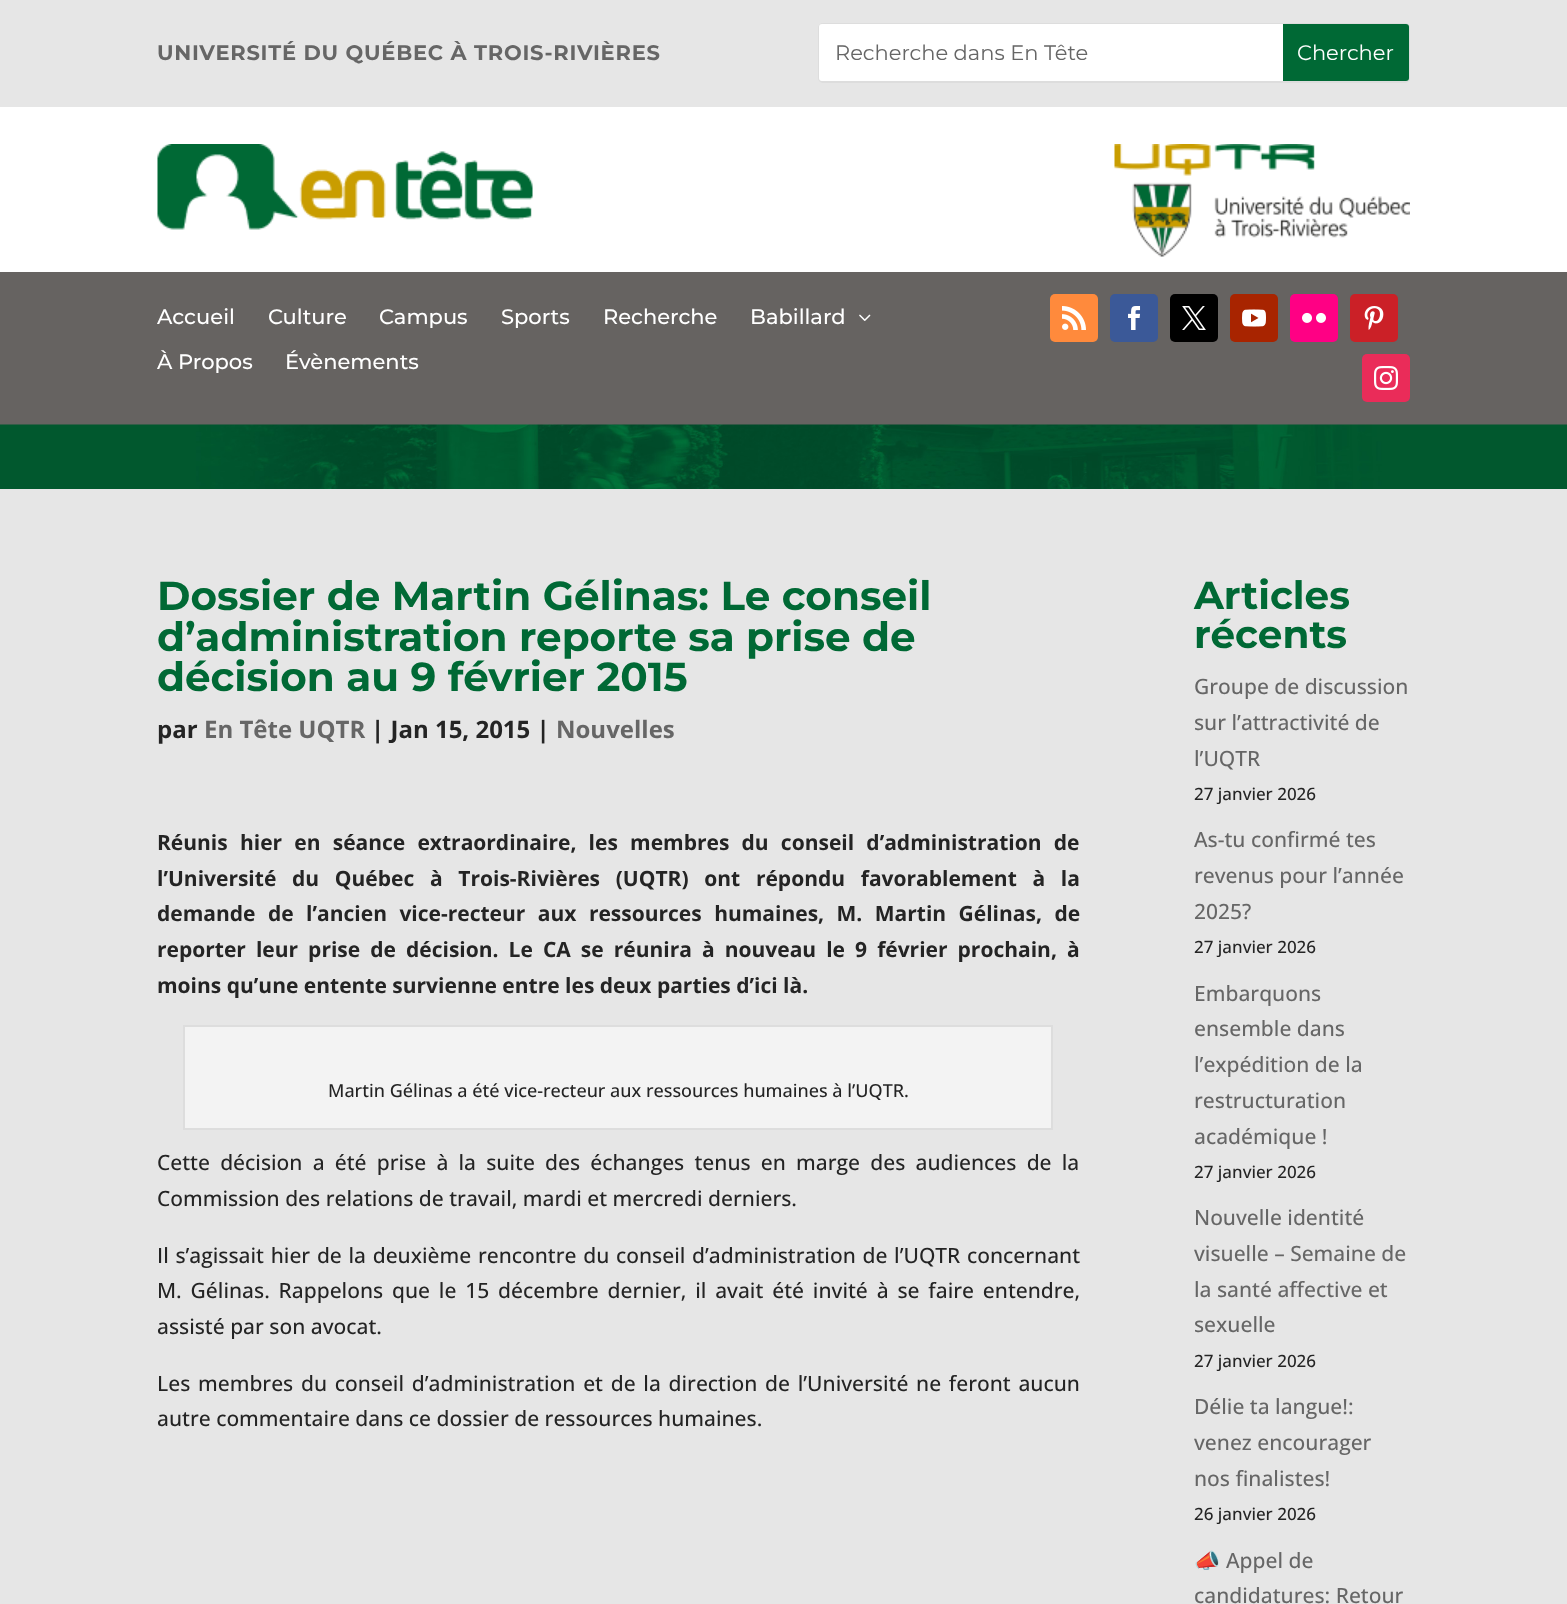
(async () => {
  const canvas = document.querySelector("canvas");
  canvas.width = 1567;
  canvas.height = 1604;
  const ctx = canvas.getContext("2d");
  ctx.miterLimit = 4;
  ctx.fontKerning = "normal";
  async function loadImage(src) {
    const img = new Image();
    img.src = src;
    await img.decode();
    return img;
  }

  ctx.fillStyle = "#ffffff";
  ctx.fillRect(0, 0, 1567, 1604);
  ctx.fillStyle = "#e6e6e6";
  ctx.fillRect(0, 0, 1567, 107);
  ctx.beginPath();
  ctx.roundRect(819, 24, 590, 58, 4);
  ctx.strokeStyle = "#dddddd";
  ctx.lineWidth = 2;
  ctx.stroke();
  ctx.fillStyle = "#ffffff";
  ctx.beginPath();
  ctx.roundRect(819, 24, 590, 57, 3);
  ctx.fill();
  ctx.fillStyle = "#006935";
  ctx.beginPath();
  ctx.roundRect(1283, 24, 126, 57, [0, 3, 3, 0]);
  ctx.fill();
  ctx.drawImage(await loadImage("img/1.png"), 157, 144, 376, 86);
  ctx.drawImage(await loadImage("img/2.png"), 1114, 144, 296, 113);
  ctx.fillStyle = "#666361";
  ctx.fillRect(0, 272, 1567, 153);
  ctx.drawImage(await loadImage("img/3.png"), 859, 314, 12, 7);
  ctx.fillStyle = "#ff8a3c";
  ctx.beginPath();
  ctx.roundRect(1050, 294, 48, 48, 5);
  ctx.fill();
  ctx.drawImage(await loadImage("img/4.png"), 1062, 306, 24, 24);
  ctx.fillStyle = "#3b5998";
  ctx.beginPath();
  ctx.roundRect(1110, 294, 48, 48, 5);
  ctx.fill();
  ctx.drawImage(await loadImage("img/5.png"), 1128, 306, 13, 24);
  ctx.fillStyle = "#000000";
  ctx.beginPath();
  ctx.roundRect(1170, 294, 48, 48, 5);
  ctx.fill();
  ctx.drawImage(await loadImage("img/6.png"), 1182, 306, 24, 24);
  ctx.fillStyle = "#a82400";
  ctx.beginPath();
  ctx.roundRect(1230, 294, 48, 48, 5);
  ctx.fill();
  ctx.drawImage(await loadImage("img/7.png"), 1242, 309, 24, 18);
  ctx.fillStyle = "#ff0084";
  ctx.beginPath();
  ctx.roundRect(1290, 294, 48, 48, 5);
  ctx.fill();
  ctx.drawImage(await loadImage("img/8.png"), 1302, 312, 24, 11);
  ctx.fillStyle = "#cb2027";
  ctx.beginPath();
  ctx.roundRect(1350, 294, 48, 48, 5);
  ctx.fill();
  ctx.drawImage(await loadImage("img/9.png"), 1364, 306, 20, 24);
  ctx.fillStyle = "#ea2c59";
  ctx.beginPath();
  ctx.roundRect(1362, 354, 48, 48, 5);
  ctx.fill();
  ctx.drawImage(await loadImage("img/10.png"), 1374, 366, 24, 24);
  ctx.drawImage(await loadImage("img/11.png"), 0, 424, 1567, 65);
  ctx.fillStyle = "#e6e6e6";
  ctx.fillRect(0, 489, 1567, 1115);
  ctx.fillStyle = "#f3f3f3";
  ctx.beginPath();
  ctx.rect(184, 1026, 868, 103);
  ctx.fill();
  ctx.stroke();
  ctx.letterSpacing = "0.75px";
  ctx.font = "bold 21px Montserrat";
  ctx.fillStyle = "#666666";
  ctx.fillText("UNIVERSITÉ DU QUÉBEC À TROIS-RIVIÈRES", 157, 60);
  ctx.letterSpacing = "0px";
  ctx.font = "21px Montserrat";
  ctx.fillText("Recherche dans En Tête", 835, 60);
  ctx.fillStyle = "#ffffff";
  ctx.fillText("Chercher", 1297, 60);
  ctx.font = "500 21px Montserrat";
  for (const [text, x, y] of [
    ["Accueil", 157, 324],
    ["Culture", 268, 324],
    ["Campus", 379, 324],
    ["Sports", 501, 324],
    ["Recherche", 603, 324],
    ["Babillard", 750, 324],
    ["À Propos", 157, 369],
    ["Évènements", 285, 369],
  ]) {
    ctx.fillText(text, x, y);
  }
  ctx.font = "bold 40.5px Montserrat";
  ctx.fillStyle = "#006935";
  for (const [text, x, y] of [
    ["Dossier de Martin Gélinas: Le conseil", 157, 610],
    ["d’administration reporte sa prise de", 157, 651],
    ["décision au 9 février 2015", 157, 691],
  ]) {
    ctx.fillText(text, x, y);
  }
  ctx.font = "bold 24px Open Sans";
  ctx.fillStyle = "#242424";
  ctx.fillText("par", 157, 738);
  ctx.fillStyle = "#666666";
  ctx.fillText("En Tête UQTR", 204, 738);
  ctx.fillStyle = "#242424";
  ctx.fillText("| Jan 15, 2015 |", 371, 738);
  ctx.fillStyle = "#666666";
  ctx.fillText("Nouvelles", 556, 738);
  ctx.wordSpacing = "6.75px";
  ctx.font = "bold 21px Open Sans";
  ctx.fillStyle = "#242424";
  ctx.fillText("Réunis hier en séance extraordinaire, les membres du conseil d’administration de", 157, 850);
  ctx.wordSpacing = "10.25px";
  ctx.fillText("l’Université du Québec à Trois-Rivières (UQTR) ont répondu favorablement à la", 157, 886);
  ctx.wordSpacing = "7px";
  ctx.fillText("demande de l’ancien vice-recteur aux ressources humaines, M. Martin Gélinas, de", 157, 921);
  ctx.wordSpacing = "4.6px";
  ctx.fillText("reporter leur prise de décision. Le CA se réunira à nouveau le 9 février prochain, à", 157, 957);
  ctx.wordSpacing = "0px";
  ctx.fillText("moins qu’une entente survienne entre les deux parties d’ici là.", 157, 993);
  ctx.font = "500 18px Open Sans";
  ctx.fillText("Martin Gélinas a été vice-recteur aux ressources humaines à l’UQTR.", 328, 1097);
  ctx.wordSpacing = "4.75px";
  ctx.font = "500 21px Open Sans";
  ctx.fillText("Cette décision a été prise à la suite des échanges tenus en marge des audiences de la", 157, 1170);
  ctx.wordSpacing = "0px";
  ctx.fillText("Commission des relations de travail, mardi et mercredi derniers.", 157, 1206);
  ctx.wordSpacing = "1.25px";
  ctx.fillText("Il s’agissait hier de la deuxième rencontre du conseil d’administration de l’UQTR concernant", 157, 1263);
  ctx.wordSpacing = "3.4px";
  ctx.fillText("M. Gélinas. Rappelons que le 15 décembre dernier, il avait été invité à se faire entendre,", 157, 1298);
  ctx.wordSpacing = "0px";
  ctx.fillText("assisté par son avocat.", 157, 1334);
  ctx.wordSpacing = "2.25px";
  ctx.fillText("Les membres du conseil d’administration et de la direction de l’Université ne feront aucun", 157, 1391);
  ctx.wordSpacing = "0px";
  ctx.fillText("autre commentaire dans ce dossier de ressources humaines.", 157, 1426);
  ctx.font = "bold 39px Montserrat";
  ctx.fillStyle = "#006935";
  ctx.fillText("Articles", 1194, 609);
  ctx.fillText("récents", 1194, 648);
  ctx.font = "500 21px Open Sans";
  ctx.fillStyle = "#666666";
  for (const [text, x, y] of [
    ["Groupe de discussion", 1194, 694],
    ["sur l’attractivité de", 1194, 730],
    ["l’UQTR", 1194, 766],
  ]) {
    ctx.fillText(text, x, y);
  }
  ctx.font = "500 17px Open Sans";
  ctx.fillStyle = "#242424";
  ctx.fillText("27 janvier 2026", 1194, 800);
  ctx.font = "500 21px Open Sans";
  ctx.fillStyle = "#666666";
  for (const [text, x, y] of [
    ["As-tu confirmé tes", 1194, 847],
    ["revenus pour l’année", 1194, 883],
    ["2025?", 1194, 919],
  ]) {
    ctx.fillText(text, x, y);
  }
  ctx.font = "500 17px Open Sans";
  ctx.fillStyle = "#242424";
  ctx.fillText("27 janvier 2026", 1194, 953);
  ctx.font = "500 21px Open Sans";
  ctx.fillStyle = "#666666";
  for (const [text, x, y] of [
    ["Embarquons", 1194, 1001],
    ["ensemble dans", 1194, 1036],
    ["l’expédition de la", 1194, 1072],
    ["restructuration", 1194, 1108],
    ["académique !", 1194, 1144],
  ]) {
    ctx.fillText(text, x, y);
  }
  ctx.font = "500 17px Open Sans";
  ctx.fillStyle = "#242424";
  ctx.fillText("27 janvier 2026", 1194, 1178);
  ctx.font = "500 21px Open Sans";
  ctx.fillStyle = "#666666";
  for (const [text, x, y] of [
    ["Nouvelle identité", 1194, 1225],
    ["visuelle – Semaine de", 1194, 1261],
    ["la santé affective et", 1194, 1297],
    ["sexuelle", 1194, 1332],
  ]) {
    ctx.fillText(text, x, y);
  }
  ctx.font = "500 17px Open Sans";
  ctx.fillStyle = "#242424";
  ctx.fillText("27 janvier 2026", 1194, 1367);
  ctx.font = "500 21px Open Sans";
  ctx.fillStyle = "#666666";
  for (const [text, x, y] of [
    ["Délie ta langue!:", 1194, 1414],
    ["venez encourager", 1194, 1450],
    ["nos finalistes!", 1194, 1486],
  ]) {
    ctx.fillText(text, x, y);
  }
  ctx.font = "500 17px Open Sans";
  ctx.fillStyle = "#242424";
  ctx.fillText("26 janvier 2026", 1194, 1520);
  ctx.font = "21px Noto Color Emoji";
  ctx.fillStyle = "#666666";
  ctx.fillText("📣", 1194, 1568);
  ctx.font = "500 21px Open Sans";
  ctx.fillText("Appel de", 1226, 1568);
  ctx.fillText("candidatures: Retour", 1194, 1603);
})();
